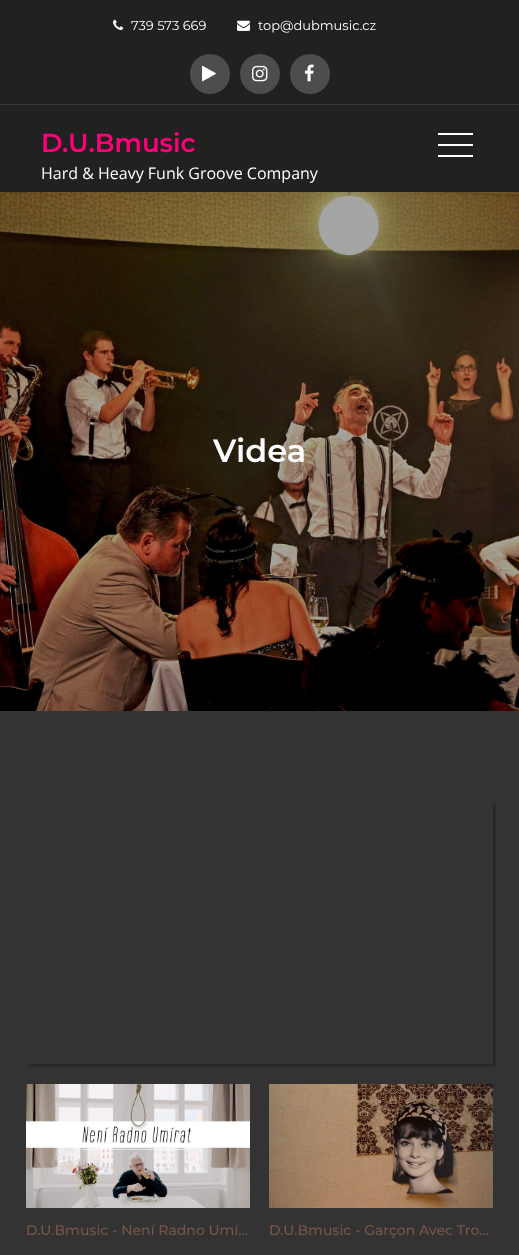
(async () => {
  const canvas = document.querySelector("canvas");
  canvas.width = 519;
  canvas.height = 1255;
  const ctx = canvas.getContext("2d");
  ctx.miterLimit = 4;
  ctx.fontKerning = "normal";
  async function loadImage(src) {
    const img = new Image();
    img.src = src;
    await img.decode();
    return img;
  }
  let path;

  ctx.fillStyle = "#333333";
  ctx.fillRect(0, 0, 519, 1255);
  ctx.fillStyle = "#212121";
  ctx.fillRect(0, 0, 519, 104);
  ctx.fillStyle = "#373737";
  ctx.fillRect(0, 104, 519, 1);
  ctx.drawImage(await loadImage("img/1.png"), 113, 19, 11, 11);
  ctx.drawImage(await loadImage("img/2.png"), 237, 20, 13, 11);
  ctx.fillStyle = "#4d4d4d";
  ctx.beginPath();
  ctx.arc(210, 74, 20, 0, Math.PI * 2);
  ctx.fill();
  ctx.drawImage(await loadImage("img/3.png"), 202, 65, 15, 17);
  ctx.beginPath();
  ctx.arc(260, 74, 20, 0, Math.PI * 2);
  ctx.fill();
  ctx.drawImage(await loadImage("img/4.png"), 252, 65, 16, 17);
  ctx.beginPath();
  ctx.arc(310, 74, 20, 0, Math.PI * 2);
  ctx.fill();
  ctx.drawImage(await loadImage("img/5.png"), 304, 64, 10, 18);
  for (const [x, y, w, h, color] of [
    [0, 105, 519, 87, "#212121"],
    [438, 133, 35, 2, "#ffffff"],
    [438, 144, 35, 2, "#ffffff"],
    [438, 155, 35, 2, "#ffffff"],
  ]) {
    ctx.fillStyle = color;
    ctx.fillRect(x, y, w, h);
  }
  ctx.drawImage(await loadImage("img/6.png"), 0, 192, 519, 519);
  ctx.save();
  path = new Path2D("M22 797H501V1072H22ZM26 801H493V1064H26Z");
  ctx.clip(path, "evenodd");
  ctx.fillStyle = "rgba(10, 10, 10, 0.35)";
  ctx.filter = "blur(1.5px)";
  ctx.beginPath();
  ctx.rect(28, 803, 467, 263);
  ctx.fill();
  ctx.filter = "none";
  ctx.restore();
  ctx.drawImage(await loadImage("img/7.png"), 26, 1084, 224, 124);
  ctx.drawImage(await loadImage("img/8.png"), 269, 1084, 224, 124);
  ctx.font = "13px Montserrat";
  ctx.fillText("739 573 669", 131, 30);
  ctx.fillText("top@dubmusic.cz", 258, 30);
  ctx.font = "600 26px Montserrat";
  ctx.fillStyle = "#ff0078";
  ctx.fillText("D.U.Bmusic", 41, 152);
  ctx.font = "16px Open Sans";
  ctx.fillStyle = "#ffffff";
  ctx.fillText("Hard & Heavy Funk Groove Company", 41, 179);
  ctx.font = "600 32px Montserrat";
  ctx.fillText("Videa", 213, 462);
  ctx.font = "500 14px Montserrat";
  ctx.fillStyle = "#795548";
  ctx.fillText("D.U.Bmusic - Není Radno Umí…", 26, 1235);
  ctx.fillText("D.U.Bmusic - Garçon Avec Tro…", 269, 1235);
})();
